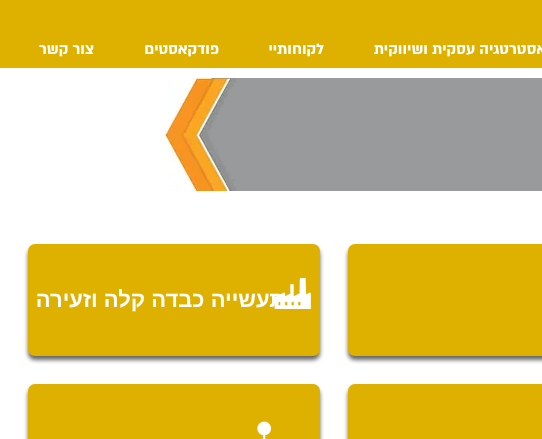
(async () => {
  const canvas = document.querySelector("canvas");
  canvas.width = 542;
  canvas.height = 439;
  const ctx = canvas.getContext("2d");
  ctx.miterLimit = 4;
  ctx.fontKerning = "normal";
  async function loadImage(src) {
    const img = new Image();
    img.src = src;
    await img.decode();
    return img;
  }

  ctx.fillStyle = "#ffffff";
  ctx.fillRect(0, 0, 542, 439);
  ctx.fillStyle = "#deb100";
  ctx.fillRect(0, 0, 542, 68);
  ctx.drawImage(await loadImage("img/1.png"), 160, 78, 382, 113);
  ctx.fillStyle = "rgba(0, 0, 0, 0.6)";
  ctx.filter = "blur(2px)";
  ctx.beginPath();
  ctx.roundRect(348, 248, 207, 112, 7);
  ctx.fill();
  ctx.filter = "none";
  ctx.fillStyle = "#deb100";
  ctx.beginPath();
  ctx.roundRect(348, 244, 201, 112, 7);
  ctx.fill();
  ctx.fillStyle = "rgba(0, 0, 0, 0.6)";
  ctx.filter = "blur(2px)";
  ctx.beginPath();
  ctx.roundRect(28, 248, 292, 112, 7);
  ctx.fill();
  ctx.filter = "none";
  ctx.fillStyle = "#deb100";
  ctx.beginPath();
  ctx.roundRect(28, 244, 292, 112, 7);
  ctx.fill();
  ctx.fillStyle = "rgba(0, 0, 0, 0.6)";
  ctx.filter = "blur(2px)";
  ctx.beginPath();
  ctx.roundRect(348, 388, 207, 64, 7);
  ctx.fill();
  ctx.filter = "none";
  ctx.fillStyle = "#deb100";
  ctx.beginPath();
  ctx.roundRect(348, 384, 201, 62, 7);
  ctx.fill();
  ctx.fillStyle = "rgba(0, 0, 0, 0.6)";
  ctx.filter = "blur(2px)";
  ctx.beginPath();
  ctx.roundRect(28, 388, 292, 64, 7);
  ctx.fill();
  ctx.filter = "none";
  ctx.fillStyle = "#deb100";
  ctx.beginPath();
  ctx.roundRect(28, 384, 292, 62, 7);
  ctx.fill();
  ctx.drawImage(await loadImage("img/3.png"), 257, 421, 15, 18);
  ctx.direction = "rtl";
  ctx.font = "bold 17px 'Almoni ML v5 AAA'";
  ctx.fillStyle = "#ffffff";
  for (const [text, x, y] of [
    ["אסטרטגיה עסקית ושיווקית", 546, 54],
    ["לקוחותיי", 324, 54],
    ["פודקאסטים", 219, 54],
    ["צור קשר", 94, 54],
  ]) {
    ctx.fillText(text, x, y);
  }
  ctx.font = "bold 22px Liberation Sans";
  ctx.fillText("תעשייה כבדה קלה וזעירה", 285, 307);
  ctx.drawImage(await loadImage("img/2.png"), 274, 278, 38, 31);
})();
